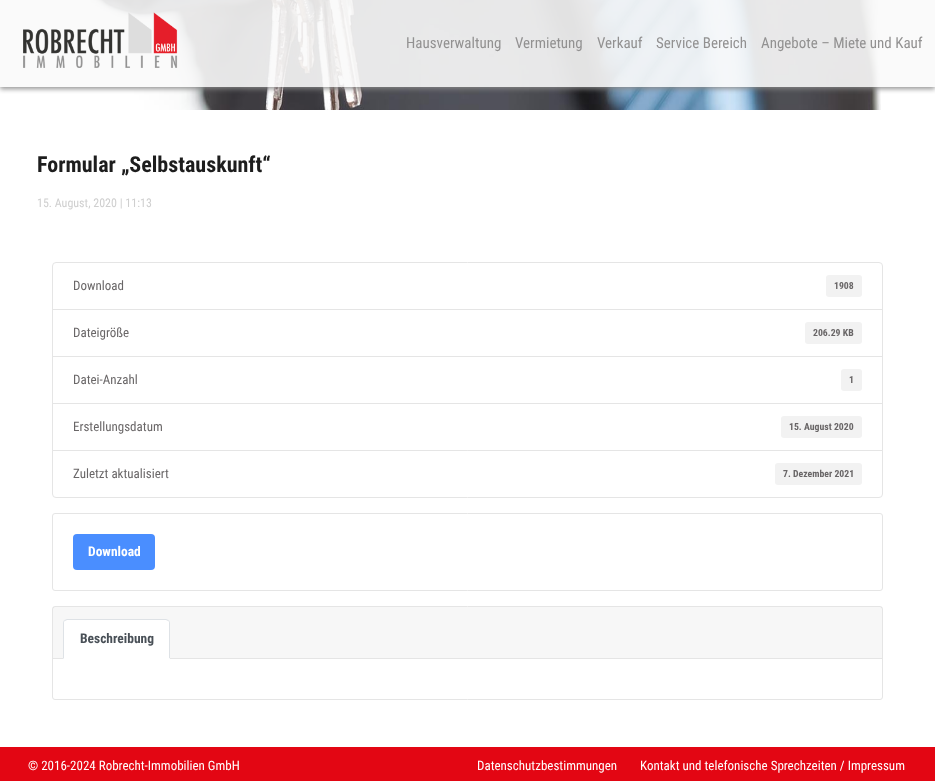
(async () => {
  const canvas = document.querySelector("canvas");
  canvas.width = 935;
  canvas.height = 781;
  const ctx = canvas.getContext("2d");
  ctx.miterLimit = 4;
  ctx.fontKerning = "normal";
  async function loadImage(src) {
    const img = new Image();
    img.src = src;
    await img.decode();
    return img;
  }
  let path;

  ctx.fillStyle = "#ffffff";
  ctx.fillRect(0, 0, 935, 781);
  ctx.drawImage(await loadImage("img/1.png"), 80, 0, 801, 110);
  ctx.save();
  ctx.beginPath();
  ctx.rect(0, 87, 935, 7);
  ctx.clip();
  ctx.fillStyle = "rgba(135, 135, 135, 0.9)";
  ctx.filter = "blur(2.5px)";
  ctx.beginPath();
  ctx.rect(0, 2, 935, 87);
  ctx.fill();
  ctx.filter = "none";
  ctx.restore();
  ctx.fillStyle = "rgba(250, 250, 250, 0.9)";
  ctx.fillRect(0, 0, 935, 87);
  ctx.drawImage(await loadImage("img/2.png"), 23, 12, 155, 56);
  ctx.beginPath();
  ctx.roundRect(52.5, 262.5, 830, 47, [3.5, 3.5, 0, 0]);
  ctx.strokeStyle = "#e5e5e5";
  ctx.stroke();
  ctx.fillStyle = "#f2f2f2";
  ctx.beginPath();
  ctx.roundRect(826, 275, 36, 22, 3);
  ctx.fill();
  ctx.strokeRect(52.5, 309.5, 830, 47);
  ctx.beginPath();
  ctx.roundRect(805, 322, 57, 22, 3);
  ctx.fill();
  ctx.strokeRect(52.5, 356.5, 830, 47);
  ctx.beginPath();
  ctx.roundRect(841, 369, 21, 22, 3);
  ctx.fill();
  ctx.strokeRect(52.5, 403.5, 830, 47);
  ctx.beginPath();
  ctx.roundRect(781, 416, 81, 22, 3);
  ctx.fill();
  ctx.fillStyle = "#ffffff";
  ctx.beginPath();
  ctx.roundRect(52.5, 450.5, 830, 47, [0, 0, 3.5, 3.5]);
  ctx.fill();
  ctx.stroke();
  ctx.fillStyle = "#f2f2f2";
  ctx.beginPath();
  ctx.roundRect(775, 463, 87, 22, 3);
  ctx.fill();
  ctx.beginPath();
  ctx.roundRect(52.5, 513.5, 830, 77, 2.5);
  ctx.stroke();
  ctx.fillStyle = "#4a8eff";
  ctx.beginPath();
  ctx.roundRect(73, 534, 82, 36, 4);
  ctx.fill();
  ctx.beginPath();
  ctx.roundRect(52.5, 606.5, 830, 93, 2.5);
  ctx.stroke();
  ctx.fillStyle = "rgba(0, 0, 0, 0.03)";
  ctx.fillRect(53, 607, 829, 51);
  ctx.fillStyle = "#e5e5e5";
  ctx.fillRect(53, 658, 829, 1);
  ctx.fillStyle = "#ffffff";
  ctx.beginPath();
  ctx.roundRect(63, 619, 107, 40, [4, 4, 0, 0]);
  ctx.fill();
  ctx.fillStyle = "#dee2e6";
  path = new Path2D("M67 619L64 620L65 621L67 620H166L168 621L169 620L166 619Z");
  ctx.fill(path);
  path = new Path2D("M170 659V623C170 622 169.5 621 169 620L168 621C169 621 169 622 169 623V658Z");
  ctx.fill(path);
  ctx.fillStyle = "#ffffff";
  path = new Path2D("M170 659L169 658H64L63 659Z");
  ctx.fill(path);
  ctx.fillStyle = "#dee2e6";
  path = new Path2D("M63 659L64 658V623C64 622 64 621 65 621L64 620C63.5 621 63 622 63 623Z");
  ctx.fill(path);
  ctx.fillStyle = "#e30613";
  ctx.fillRect(0, 747, 935, 34);
  ctx.font = "15px Roboto Condensed";
  ctx.fillStyle = "#929191";
  for (const [text, x, y] of [
    ["Hausverwaltung", 406, 48],
    ["Vermietung", 515, 48],
    ["Verkauf", 597, 48],
    ["Service Bereich", 656, 48],
    ["Angebote – Miete und Kauf", 761, 48],
  ]) {
    ctx.fillText(text, x, y);
  }
  ctx.font = "bold 22px Roboto Condensed";
  ctx.fillStyle = "#1d1d1d";
  ctx.fillText("Formular „Selbstauskunft“", 37, 172);
  ctx.font = "12px Roboto Condensed";
  ctx.fillStyle = "#cfcfcf";
  ctx.fillText("15. August, 2020 | 11:13", 37, 207);
  ctx.font = "13px Roboto Condensed";
  ctx.fillStyle = "#696667";
  ctx.fillText("Download", 73, 290);
  ctx.font = "bold 9.75px Roboto Condensed";
  ctx.fillText("1908", 834, 289);
  ctx.font = "13px Roboto Condensed";
  ctx.fillText("Dateigröße", 73, 337);
  ctx.font = "bold 9.75px Roboto Condensed";
  ctx.fillText("206.29 KB", 813, 336);
  ctx.font = "13px Roboto Condensed";
  ctx.fillText("Datei-Anzahl", 73, 384);
  ctx.font = "bold 9.75px Roboto Condensed";
  ctx.fillText("1", 849, 383);
  ctx.font = "13px Roboto Condensed";
  ctx.fillText("Erstellungsdatum", 73, 431);
  ctx.font = "bold 9.75px Roboto Condensed";
  ctx.fillText("15. August 2020", 789, 430);
  ctx.font = "13px Roboto Condensed";
  ctx.fillText("Zuletzt aktualisiert", 73, 478);
  ctx.font = "bold 9.75px Roboto Condensed";
  ctx.fillText("7. Dezember 2021", 783, 477);
  ctx.font = "bold 13.5px Roboto Condensed";
  ctx.fillStyle = "#ffffff";
  ctx.fillText("Download", 88, 556);
  ctx.fillStyle = "#495057";
  ctx.fillText("Beschreibung", 80, 643);
  ctx.font = "13px Roboto Condensed";
  ctx.fillStyle = "#ffffff";
  for (const [text, x, y] of [
    ["© 2016-2024 Robrecht-Immobilien GmbH", 28, 770],
    ["Datenschutzbestimmungen", 477, 770],
    ["Kontakt und telefonische Sprechzeiten / Impressum", 640, 770],
  ]) {
    ctx.fillText(text, x, y);
  }
})();
